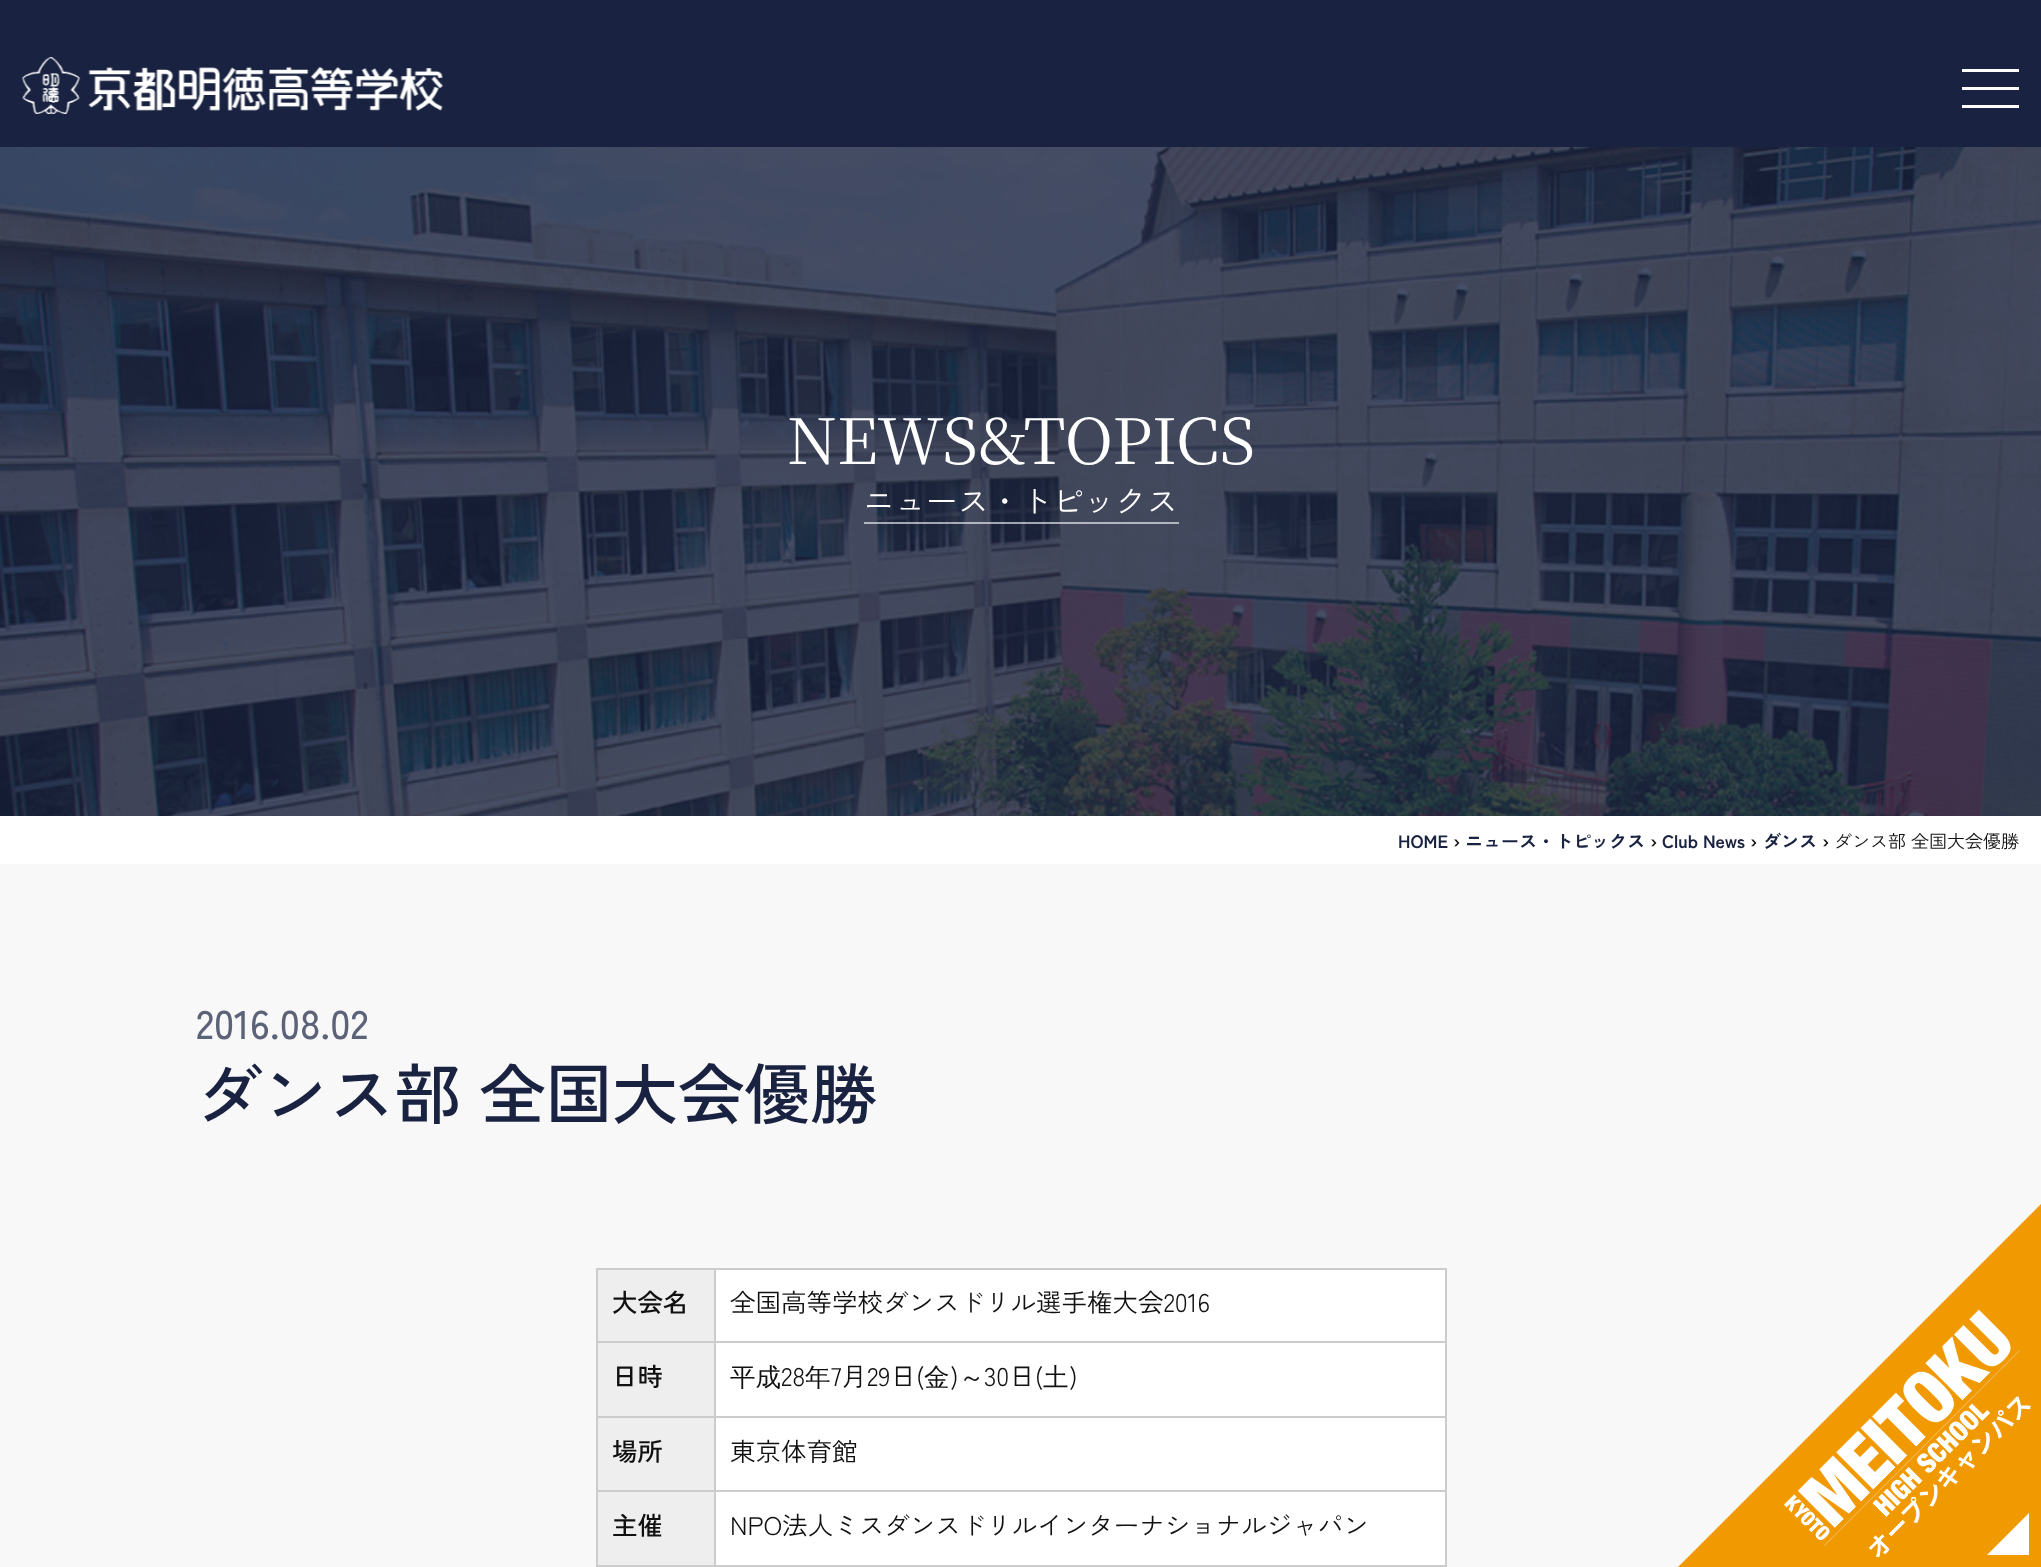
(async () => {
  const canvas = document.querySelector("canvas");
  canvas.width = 2041;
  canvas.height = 1567;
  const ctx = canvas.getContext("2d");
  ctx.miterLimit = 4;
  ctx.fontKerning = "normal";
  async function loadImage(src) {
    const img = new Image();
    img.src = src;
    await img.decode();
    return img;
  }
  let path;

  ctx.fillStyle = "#f8f8f8";
  ctx.fillRect(0, 0, 2041, 1567);
  ctx.fillStyle = "#192240";
  ctx.fillRect(0, 0, 2041, 147);
  ctx.drawImage(await loadImage("img/1.png"), 22, 57, 421, 57);
  for (const [x, y, w, h, color] of [
    [1962, 69, 57, 3, "#ffffff"],
    [1962, 87, 57, 3, "#ffffff"],
    [1962, 105, 57, 3, "#ffffff"],
  ]) {
    ctx.fillStyle = color;
    ctx.fillRect(x, y, w, h);
  }
  ctx.drawImage(await loadImage("img/2.png"), 0, 147, 2041, 669);
  for (const [x, y, w, h, color] of [
    [864, 522, 315, 2, "rgba(255, 255, 255, 0.6)"],
    [0, 816, 2041, 48, "#ffffff"],
    [598, 1270, 116, 71, "#eeeeee"],
    [714, 1268, 732, 2, "#cccccc"],
    [714, 1341, 732, 2, "#cccccc"],
    [714, 1416, 732, 2, "#cccccc"],
    [714, 1490, 732, 2, "#cccccc"],
    [596, 1565, 850, 2, "#cccccc"],
    [714, 1490, 2, 76, "#cccccc"],
    [596, 1490, 120, 2, "#cccccc"],
    [714, 1416, 2, 75, "#cccccc"],
    [596, 1416, 120, 2, "#cccccc"],
    [714, 1341, 2, 77, "#cccccc"],
    [596, 1341, 120, 2, "#cccccc"],
    [714, 1268, 2, 75, "#cccccc"],
    [596, 1268, 120, 2, "#cccccc"],
    [596, 1490, 2, 76, "#cccccc"],
    [596, 1416, 2, 75, "#cccccc"],
    [596, 1341, 2, 77, "#cccccc"],
    [596, 1268, 2, 75, "#cccccc"],
    [716, 1270, 729, 71, "#ffffff"],
    [1445, 1490, 2, 76, "#cccccc"],
    [1445, 1416, 2, 75, "#cccccc"],
    [1445, 1341, 2, 77, "#cccccc"],
    [1445, 1268, 2, 75, "#cccccc"],
    [598, 1343, 116, 73, "#eeeeee"],
    [716, 1343, 729, 73, "#ffffff"],
    [598, 1418, 116, 72, "#eeeeee"],
    [716, 1418, 729, 72, "#ffffff"],
    [598, 1492, 116, 73, "#eeeeee"],
    [716, 1492, 729, 73, "#ffffff"],
    [1445, 1566, 2, 1, "#cccccc"],
  ]) {
    ctx.fillStyle = color;
    ctx.fillRect(x, y, w, h);
  }
  ctx.fillStyle = "#f19900";
  path = new Path2D("M1647 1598L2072 1173L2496 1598L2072 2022Z");
  ctx.fill(path);
  ctx.drawImage(await loadImage("img/3.png"), 1783, 1309, 248, 249);
  ctx.fillStyle = "#ffffff";
  path = new Path2D("M1987 1555L2029 1513V1555Z");
  ctx.fill(path);
  ctx.font = "63px Noto Serif JP";
  ctx.fillText("NEWS&TOPICS", 787, 464);
  ctx.font = "31.5px Zen Kaku Gothic New";
  ctx.fillText("ニュース・トピックス", 863, 513);
  ctx.font = "bold 18px Zen Kaku Gothic New";
  ctx.fillStyle = "#192240";
  ctx.fillText("HOME", 1398, 848);
  ctx.fillStyle = "#111111";
  ctx.fillText("›", 1453, 848);
  ctx.fillStyle = "#192240";
  ctx.fillText("ニュース・トピックス", 1465, 848);
  ctx.fillStyle = "#111111";
  ctx.fillText("›", 1650, 848);
  ctx.fillStyle = "#192240";
  ctx.fillText("Club News", 1662, 848);
  ctx.fillStyle = "#111111";
  ctx.fillText("›", 1750, 848);
  ctx.fillStyle = "#192240";
  ctx.fillText("ダンス", 1763, 848);
  ctx.fillStyle = "#111111";
  ctx.fillText("›", 1822, 848);
  ctx.font = "18px Zen Kaku Gothic New";
  ctx.fillText("ダンス部 全国大会優勝", 1834, 848);
  ctx.font = "500 40px Zen Kaku Gothic New";
  ctx.fillStyle = "#5c6277";
  ctx.fillText("2016.08.02", 196, 1039);
  ctx.font = "500 66.25px Zen Kaku Gothic New";
  ctx.fillStyle = "#192240";
  ctx.fillText("ダンス部 全国大会優勝", 196, 1119);
  ctx.font = "500 25.5px Zen Kaku Gothic New";
  ctx.fillStyle = "#111111";
  ctx.fillText("大会名", 612, 1312);
  ctx.font = "25.5px Zen Kaku Gothic New";
  ctx.fillText("全国高等学校ダンスドリル選手権大会2016", 730, 1312);
  ctx.font = "500 25.5px Zen Kaku Gothic New";
  ctx.fillText("日時", 612, 1386);
  ctx.font = "500 25.5px WenQuanYi Zen Hei";
  ctx.fillText("平成", 730, 1386);
  ctx.font = "25.5px Zen Kaku Gothic New";
  ctx.fillText("28", 781, 1386);
  ctx.font = "500 25.5px WenQuanYi Zen Hei";
  ctx.fillText("年", 805, 1386);
  ctx.font = "25.5px Zen Kaku Gothic New";
  ctx.fillText("7月29日(", 831, 1386);
  ctx.font = "500 25.5px WenQuanYi Zen Hei";
  ctx.fillText("金", 924, 1386);
  ctx.font = "25.5px Zen Kaku Gothic New";
  ctx.fillText(")", 950, 1386);
  ctx.font = "500 25.5px WenQuanYi Zen Hei";
  ctx.fillText("～", 959, 1386);
  ctx.font = "25.5px Zen Kaku Gothic New";
  ctx.fillText("30日(", 984, 1386);
  ctx.font = "500 25.5px WenQuanYi Zen Hei";
  ctx.fillText("土", 1043, 1386);
  ctx.font = "25.5px Zen Kaku Gothic New";
  ctx.fillText(")", 1069, 1386);
  ctx.font = "500 25.5px Zen Kaku Gothic New";
  ctx.fillText("場所", 612, 1461);
  ctx.font = "25.5px Zen Kaku Gothic New";
  ctx.fillText("東京体育館", 730, 1461);
  ctx.font = "500 25.5px Zen Kaku Gothic New";
  ctx.fillText("主催", 612, 1535);
  ctx.font = "25.5px Zen Kaku Gothic New";
  ctx.fillText("NPO法人ミスダンスドリルインターナショナルジャパン", 730, 1535);
})();
